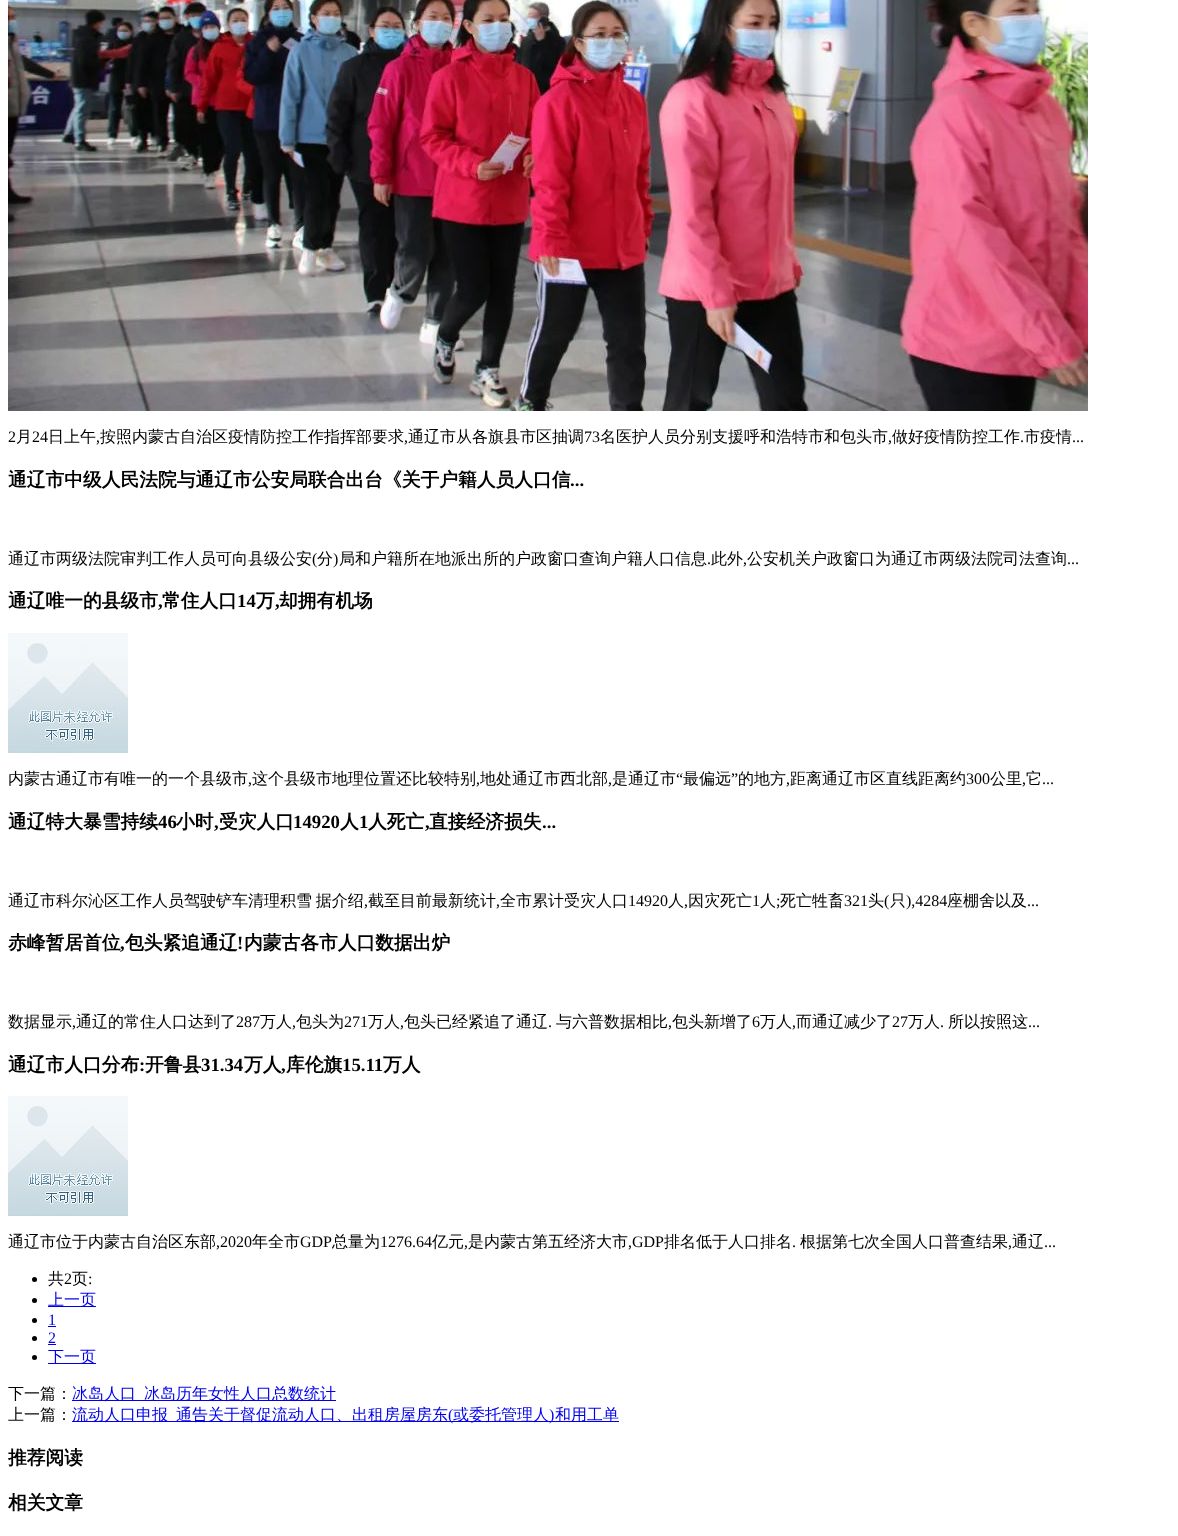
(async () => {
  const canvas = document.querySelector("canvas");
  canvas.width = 1178;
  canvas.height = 1536;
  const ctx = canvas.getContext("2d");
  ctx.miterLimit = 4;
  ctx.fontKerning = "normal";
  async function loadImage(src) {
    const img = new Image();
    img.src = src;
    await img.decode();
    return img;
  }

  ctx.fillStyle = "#ffffff";
  ctx.fillRect(0, 0, 1178, 1536);
  ctx.drawImage(await loadImage("img/1.png"), 8, 0, 1080, 411);
  ctx.drawImage(await loadImage("img/2.png"), 8, 633, 120, 120);
  ctx.drawImage(await loadImage("img/2.png"), 8, 1096, 120, 120);
  ctx.fillStyle = "#000000";
  ctx.beginPath();
  ctx.arc(34.5, 1279.5, 2.5, 0, Math.PI * 2);
  ctx.fill();
  ctx.beginPath();
  ctx.arc(34.5, 1300.5, 2.5, 0, Math.PI * 2);
  ctx.fill();
  ctx.fillStyle = "#0000ee";
  ctx.fillRect(48, 1306, 48, 1);
  ctx.fillStyle = "#000000";
  ctx.beginPath();
  ctx.arc(34.5, 1320.5, 2.5, 0, Math.PI * 2);
  ctx.fill();
  ctx.fillStyle = "#0000ee";
  ctx.fillRect(48, 1326, 8, 1);
  ctx.fillStyle = "#000000";
  ctx.beginPath();
  ctx.arc(34.5, 1338.5, 2.5, 0, Math.PI * 2);
  ctx.fill();
  ctx.fillStyle = "#0000ee";
  ctx.fillRect(48, 1344, 8, 1);
  ctx.fillStyle = "#000000";
  ctx.beginPath();
  ctx.arc(34.5, 1357.5, 2.5, 0, Math.PI * 2);
  ctx.fill();
  for (const [x, y, w, h, color] of [
    [48, 1363, 48, 1, "#0000ee"],
    [72, 1400, 264, 1, "#0000ee"],
    [72, 1421, 547, 1, "#0000ee"],
  ]) {
    ctx.fillStyle = color;
    ctx.fillRect(x, y, w, h);
  }
  ctx.font = "16px Liberation Serif";
  ctx.fillStyle = "#000000";
  ctx.fillText("2", 8, 442);
  ctx.font = "500 16px WenQuanYi Zen Hei";
  ctx.fillText("月", 16, 442);
  ctx.font = "16px Liberation Serif";
  ctx.fillText("24", 32, 442);
  ctx.font = "500 16px WenQuanYi Zen Hei";
  ctx.fillText("日上午", 48, 442);
  ctx.font = "16px Liberation Serif";
  ctx.fillText(",", 96, 442);
  ctx.font = "500 16px WenQuanYi Zen Hei";
  ctx.fillText("按照内蒙古自治区疫情防控工作指挥部要求", 100, 442);
  ctx.font = "16px Liberation Serif";
  ctx.fillText(",", 404, 442);
  ctx.font = "500 16px WenQuanYi Zen Hei";
  ctx.fillText("通辽市从各旗县市区抽调", 408, 442);
  ctx.font = "16px Liberation Serif";
  ctx.fillText("73", 584, 442);
  ctx.font = "500 16px WenQuanYi Zen Hei";
  ctx.fillText("名医护人员分别支援呼和浩特市和包头市", 600, 442);
  ctx.font = "16px Liberation Serif";
  ctx.fillText(",", 888, 442);
  ctx.font = "500 16px WenQuanYi Zen Hei";
  ctx.fillText("做好疫情防控工作", 892, 442);
  ctx.font = "16px Liberation Serif";
  ctx.fillText(".", 1020, 442);
  ctx.font = "500 16px WenQuanYi Zen Hei";
  ctx.fillText("市疫情", 1024, 442);
  ctx.font = "16px Liberation Serif";
  ctx.fillText("...", 1072, 442);
  ctx.font = "bold 18.75px WenQuanYi Zen Hei";
  ctx.fillText("通辽市中级人民法院与通辽市公安局联合出台《关于户籍人员人口信", 8, 486);
  ctx.font = "bold 18.75px Liberation Serif";
  ctx.fillText("...", 570, 486);
  ctx.font = "500 16px WenQuanYi Zen Hei";
  ctx.fillText("通辽市两级法院审判工作人员可向县级公安", 8, 564);
  ctx.font = "16px Liberation Serif";
  ctx.fillText("(", 312, 564);
  ctx.font = "500 16px WenQuanYi Zen Hei";
  ctx.fillText("分", 317, 564);
  ctx.font = "16px Liberation Serif";
  ctx.fillText(")", 333, 564);
  ctx.font = "500 16px WenQuanYi Zen Hei";
  ctx.fillText("局和户籍所在地派出所的户政窗口查询户籍人口信息", 339, 564);
  ctx.font = "16px Liberation Serif";
  ctx.fillText(".", 707, 564);
  ctx.font = "500 16px WenQuanYi Zen Hei";
  ctx.fillText("此外", 711, 564);
  ctx.font = "16px Liberation Serif";
  ctx.fillText(",", 743, 564);
  ctx.font = "500 16px WenQuanYi Zen Hei";
  ctx.fillText("公安机关户政窗口为通辽市两级法院司法查询", 747, 564);
  ctx.font = "16px Liberation Serif";
  ctx.fillText("...", 1067, 564);
  ctx.font = "bold 18.75px WenQuanYi Zen Hei";
  ctx.fillText("通辽唯一的县级市", 8, 607);
  ctx.font = "bold 18.75px Liberation Serif";
  ctx.fillText(",", 158, 607);
  ctx.font = "bold 18.75px WenQuanYi Zen Hei";
  ctx.fillText("常住人口", 162, 607);
  ctx.font = "bold 18.75px Liberation Serif";
  ctx.fillText("14", 237, 607);
  ctx.font = "bold 18.75px WenQuanYi Zen Hei";
  ctx.fillText("万", 256, 607);
  ctx.font = "bold 18.75px Liberation Serif";
  ctx.fillText(",", 275, 607);
  ctx.font = "bold 18.75px WenQuanYi Zen Hei";
  ctx.fillText("却拥有机场", 279, 607);
  ctx.font = "500 16px WenQuanYi Zen Hei";
  ctx.fillText("内蒙古通辽市有唯一的一个县级市", 8, 784);
  ctx.font = "16px Liberation Serif";
  ctx.fillText(",", 248, 784);
  ctx.font = "500 16px WenQuanYi Zen Hei";
  ctx.fillText("这个县级市地理位置还比较特别", 252, 784);
  ctx.font = "16px Liberation Serif";
  ctx.fillText(",", 476, 784);
  ctx.font = "500 16px WenQuanYi Zen Hei";
  ctx.fillText("地处通辽市西北部", 480, 784);
  ctx.font = "16px Liberation Serif";
  ctx.fillText(",", 608, 784);
  ctx.font = "500 16px WenQuanYi Zen Hei";
  ctx.fillText("是通辽市", 612, 784);
  ctx.font = "16px Liberation Serif";
  ctx.fillText("“", 676, 784);
  ctx.font = "500 16px WenQuanYi Zen Hei";
  ctx.fillText("最偏远", 683, 784);
  ctx.font = "16px Liberation Serif";
  ctx.fillText("”", 731, 784);
  ctx.font = "500 16px WenQuanYi Zen Hei";
  ctx.fillText("的地方", 738, 784);
  ctx.font = "16px Liberation Serif";
  ctx.fillText(",", 786, 784);
  ctx.font = "500 16px WenQuanYi Zen Hei";
  ctx.fillText("距离通辽市区直线距离约", 790, 784);
  ctx.font = "16px Liberation Serif";
  ctx.fillText("300", 966, 784);
  ctx.font = "500 16px WenQuanYi Zen Hei";
  ctx.fillText("公里", 990, 784);
  ctx.font = "16px Liberation Serif";
  ctx.fillText(",", 1022, 784);
  ctx.font = "500 16px WenQuanYi Zen Hei";
  ctx.fillText("它", 1026, 784);
  ctx.font = "16px Liberation Serif";
  ctx.fillText("...", 1042, 784);
  ctx.font = "bold 18.75px WenQuanYi Zen Hei";
  ctx.fillText("通辽特大暴雪持续", 8, 828);
  ctx.font = "bold 18.75px Liberation Serif";
  ctx.fillText("46", 158, 828);
  ctx.font = "bold 18.75px WenQuanYi Zen Hei";
  ctx.fillText("小时", 176, 828);
  ctx.font = "bold 18.75px Liberation Serif";
  ctx.fillText(",", 214, 828);
  ctx.font = "bold 18.75px WenQuanYi Zen Hei";
  ctx.fillText("受灾人口", 219, 828);
  ctx.font = "bold 18.75px Liberation Serif";
  ctx.fillText("14920", 293, 828);
  ctx.font = "bold 18.75px WenQuanYi Zen Hei";
  ctx.fillText("人", 340, 828);
  ctx.font = "bold 18.75px Liberation Serif";
  ctx.fillText("1", 359, 828);
  ctx.font = "bold 18.75px WenQuanYi Zen Hei";
  ctx.fillText("人死亡", 368, 828);
  ctx.font = "bold 18.75px Liberation Serif";
  ctx.fillText(",", 425, 828);
  ctx.font = "bold 18.75px WenQuanYi Zen Hei";
  ctx.fillText("直接经济损失", 429, 828);
  ctx.font = "bold 18.75px Liberation Serif";
  ctx.fillText("...", 542, 828);
  ctx.wordSpacing = "-1px";
  ctx.font = "500 16px WenQuanYi Zen Hei";
  ctx.fillText("通辽市科尔沁区工作人员驾驶铲车清理积雪 据介绍", 8, 906);
  ctx.wordSpacing = "0px";
  ctx.font = "16px Liberation Serif";
  ctx.fillText(",", 364, 906);
  ctx.font = "500 16px WenQuanYi Zen Hei";
  ctx.fillText("截至目前最新统计", 368, 906);
  ctx.font = "16px Liberation Serif";
  ctx.fillText(",", 496, 906);
  ctx.font = "500 16px WenQuanYi Zen Hei";
  ctx.fillText("全市累计受灾人口", 500, 906);
  ctx.font = "16px Liberation Serif";
  ctx.fillText("14920", 628, 906);
  ctx.font = "500 16px WenQuanYi Zen Hei";
  ctx.fillText("人", 668, 906);
  ctx.font = "16px Liberation Serif";
  ctx.fillText(",", 684, 906);
  ctx.font = "500 16px WenQuanYi Zen Hei";
  ctx.fillText("因灾死亡", 688, 906);
  ctx.font = "16px Liberation Serif";
  ctx.fillText("1", 752, 906);
  ctx.font = "500 16px WenQuanYi Zen Hei";
  ctx.fillText("人", 760, 906);
  ctx.font = "16px Liberation Serif";
  ctx.fillText(";", 776, 906);
  ctx.font = "500 16px WenQuanYi Zen Hei";
  ctx.fillText("死亡牲畜", 780, 906);
  ctx.font = "16px Liberation Serif";
  ctx.fillText("321", 844, 906);
  ctx.font = "500 16px WenQuanYi Zen Hei";
  ctx.fillText("头", 868, 906);
  ctx.font = "16px Liberation Serif";
  ctx.fillText("(", 884, 906);
  ctx.font = "500 16px WenQuanYi Zen Hei";
  ctx.fillText("只", 890, 906);
  ctx.font = "16px Liberation Serif";
  ctx.fillText("),4284", 906, 906);
  ctx.font = "500 16px WenQuanYi Zen Hei";
  ctx.fillText("座棚舍以及", 947, 906);
  ctx.font = "16px Liberation Serif";
  ctx.fillText("...", 1027, 906);
  ctx.font = "bold 18.75px WenQuanYi Zen Hei";
  ctx.fillText("赤峰暂居首位", 8, 949);
  ctx.font = "bold 18.75px Liberation Serif";
  ctx.fillText(",", 120, 949);
  ctx.font = "bold 18.75px WenQuanYi Zen Hei";
  ctx.fillText("包头紧追通辽", 125, 949);
  ctx.font = "bold 18.75px Liberation Serif";
  ctx.fillText("!", 237, 949);
  ctx.font = "bold 18.75px WenQuanYi Zen Hei";
  ctx.fillText("内蒙古各市人口数据出炉", 244, 949);
  ctx.font = "500 16px WenQuanYi Zen Hei";
  ctx.fillText("数据显示", 8, 1027);
  ctx.fillText("通辽的常住人口达到了", 76, 1027);
  ctx.font = "16px Liberation Serif";
  ctx.fillText("287", 236, 1027);
  ctx.font = "500 16px WenQuanYi Zen Hei";
  ctx.fillText("万人", 260, 1027);
  ctx.fillText("包头为", 296, 1027);
  ctx.font = "16px Liberation Serif";
  ctx.fillText("271", 344, 1027);
  ctx.font = "500 16px WenQuanYi Zen Hei";
  for (const [text, x, y] of [
    ["万人", 368, 1027],
    ["包头已经紧追了通辽", 404, 1027],
    ["与六普数据相比", 556, 1027],
    ["包头新增了", 672, 1027],
  ]) {
    ctx.fillText(text, x, y);
  }
  ctx.font = "16px Liberation Serif";
  ctx.fillText("6", 752, 1027);
  ctx.font = "500 16px WenQuanYi Zen Hei";
  ctx.fillText("万人", 760, 1027);
  ctx.fillText("而通辽减少了", 796, 1027);
  ctx.font = "16px Liberation Serif";
  ctx.fillText("27", 892, 1027);
  ctx.font = "500 16px WenQuanYi Zen Hei";
  ctx.fillText("万人", 908, 1027);
  ctx.fillText("所以按照这", 948, 1027);
  ctx.font = "16px Liberation Serif";
  for (const [text, x, y] of [
    [",", 72, 1027],
    [",", 292, 1027],
    [",", 400, 1027],
    [".", 548, 1027],
    [",", 668, 1027],
    [",", 792, 1027],
    [".", 940, 1027],
    ["...", 1028, 1027],
  ]) {
    ctx.fillText(text, x, y);
  }
  ctx.font = "bold 18.75px WenQuanYi Zen Hei";
  ctx.fillText("通辽市人口分布", 8, 1071);
  ctx.font = "bold 18.75px Liberation Serif";
  ctx.fillText(":", 139, 1071);
  ctx.font = "bold 18.75px WenQuanYi Zen Hei";
  ctx.fillText("开鲁县", 145, 1071);
  ctx.font = "bold 18.75px Liberation Serif";
  ctx.fillText("31.34", 201, 1071);
  ctx.font = "bold 18.75px WenQuanYi Zen Hei";
  ctx.fillText("万人", 244, 1071);
  ctx.font = "bold 18.75px Liberation Serif";
  ctx.fillText(",", 281, 1071);
  ctx.font = "bold 18.75px WenQuanYi Zen Hei";
  ctx.fillText("库伦旗", 286, 1071);
  ctx.font = "bold 18.75px Liberation Serif";
  ctx.fillText("15.11", 342, 1071);
  ctx.font = "bold 18.75px WenQuanYi Zen Hei";
  ctx.fillText("万人", 383, 1071);
  ctx.font = "500 16px WenQuanYi Zen Hei";
  ctx.fillText("通辽市位于内蒙古自治区东部", 8, 1247);
  ctx.font = "16px Liberation Serif";
  ctx.fillText(",2020", 216, 1247);
  ctx.font = "500 16px WenQuanYi Zen Hei";
  ctx.fillText("年全市", 252, 1247);
  ctx.font = "16px Liberation Serif";
  ctx.fillText("GDP", 300, 1247);
  ctx.font = "500 16px WenQuanYi Zen Hei";
  ctx.fillText("总量为", 332, 1247);
  ctx.font = "16px Liberation Serif";
  ctx.fillText("1276.64", 380, 1247);
  ctx.font = "500 16px WenQuanYi Zen Hei";
  ctx.fillText("亿元", 432, 1247);
  ctx.font = "16px Liberation Serif";
  ctx.fillText(",", 464, 1247);
  ctx.font = "500 16px WenQuanYi Zen Hei";
  ctx.fillText("是内蒙古第五经济大市", 468, 1247);
  ctx.font = "16px Liberation Serif";
  ctx.fillText(",GDP", 628, 1247);
  ctx.font = "500 16px WenQuanYi Zen Hei";
  ctx.fillText("排名低于人口排名", 664, 1247);
  ctx.font = "16px Liberation Serif";
  ctx.fillText(".", 792, 1247);
  ctx.font = "500 16px WenQuanYi Zen Hei";
  ctx.fillText("根据第七次全国人口普查结果", 800, 1247);
  ctx.font = "16px Liberation Serif";
  ctx.fillText(",", 1008, 1247);
  ctx.font = "500 16px WenQuanYi Zen Hei";
  ctx.fillText("通辽", 1012, 1247);
  ctx.font = "16px Liberation Serif";
  ctx.fillText("...", 1044, 1247);
  ctx.font = "500 16px WenQuanYi Zen Hei";
  ctx.fillText("共", 48, 1284);
  ctx.font = "16px Liberation Serif";
  ctx.fillText("2", 64, 1284);
  ctx.font = "500 16px WenQuanYi Zen Hei";
  ctx.fillText("页", 72, 1284);
  ctx.font = "16px Liberation Serif";
  ctx.fillText(":", 88, 1284);
  ctx.font = "500 16px WenQuanYi Zen Hei";
  ctx.fillStyle = "#0000ee";
  ctx.fillText("上一页", 48, 1305);
  ctx.font = "16px Liberation Serif";
  ctx.fillText("1", 48, 1325);
  ctx.fillText("2", 48, 1343);
  ctx.font = "500 16px WenQuanYi Zen Hei";
  ctx.fillText("下一页", 48, 1362);
  ctx.fillStyle = "#000000";
  ctx.fillText("下一篇：", 8, 1399);
  ctx.fillStyle = "#0000ee";
  ctx.fillText("冰岛人口", 72, 1399);
  ctx.fillText("冰岛历年女性人口总数统计", 144, 1399);
  ctx.fillStyle = "#000000";
  ctx.fillText("上一篇：", 8, 1420);
  ctx.fillStyle = "#0000ee";
  ctx.fillText("流动人口申报", 72, 1420);
  ctx.fillText("通告关于督促流动人口、出租房屋房东", 176, 1420);
  ctx.font = "16px Liberation Serif";
  ctx.fillText("(", 448, 1420);
  ctx.font = "500 16px WenQuanYi Zen Hei";
  ctx.fillText("或委托管理人", 453, 1420);
  ctx.font = "16px Liberation Serif";
  ctx.fillText(")", 549, 1420);
  ctx.font = "500 16px WenQuanYi Zen Hei";
  ctx.fillText("和用工单", 555, 1420);
  ctx.font = "bold 18.75px WenQuanYi Zen Hei";
  ctx.fillStyle = "#000000";
  ctx.fillText("推荐阅读", 8, 1464);
  ctx.fillText("相关文章", 8, 1509);
})();
